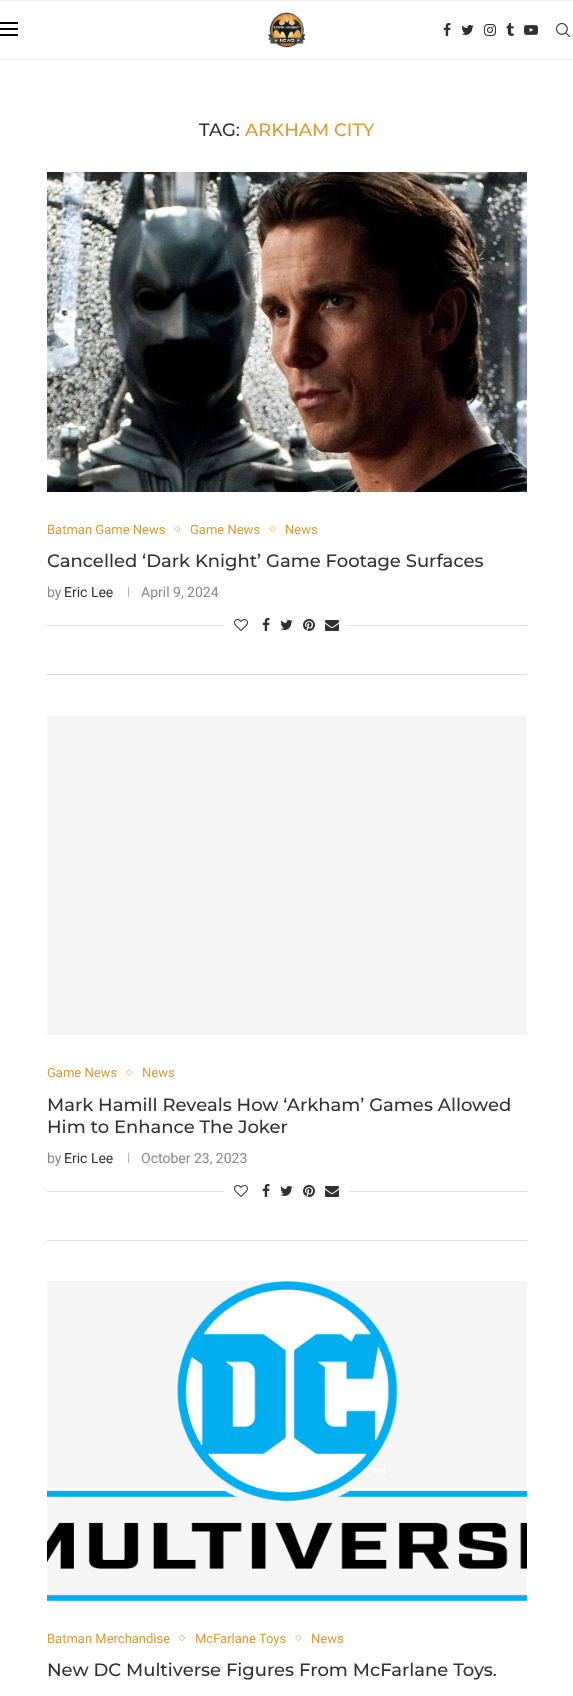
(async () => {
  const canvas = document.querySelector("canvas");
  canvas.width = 573;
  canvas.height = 1696;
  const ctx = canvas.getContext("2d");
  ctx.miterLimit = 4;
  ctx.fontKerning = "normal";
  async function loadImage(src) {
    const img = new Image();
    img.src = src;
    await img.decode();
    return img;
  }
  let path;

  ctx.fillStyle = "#ffffff";
  ctx.fillRect(0, 0, 573, 1696);
  for (const [x, y, w, h, color] of [
    [0, 0, 573, 1, "#ececec"],
    [0, 59, 573, 1, "#ececec"],
    [0, 22, 18, 2, "#000000"],
    [0, 28, 18, 2, "#000000"],
    [0, 34, 18, 2, "#000000"],
  ]) {
    ctx.fillStyle = color;
    ctx.fillRect(x, y, w, h);
  }
  ctx.drawImage(await loadImage("img/1.png"), 268, 12, 38, 36);
  ctx.drawImage(await loadImage("img/2.png"), 443, 23, 8, 13);
  ctx.drawImage(await loadImage("img/3.png"), 461, 25, 13, 10);
  ctx.drawImage(await loadImage("img/4.png"), 484, 24, 12, 12);
  ctx.drawImage(await loadImage("img/5.png"), 506, 23, 8, 13);
  ctx.drawImage(await loadImage("img/6.png"), 524, 25, 14, 10);
  ctx.drawImage(await loadImage("img/7.png"), 556, 23, 14, 14);
  ctx.fillStyle = "#dedede";
  ctx.fillRect(47, 674, 480, 1);
  ctx.drawImage(await loadImage("img/8.png"), 47, 172, 480, 320);
  path = new Path2D("M177.5 526L180 529L177.5 531.5L174.5 529Z");
  ctx.strokeStyle = "#e9bd7a";
  ctx.stroke(path);
  path = new Path2D("M272.5 526L275.5 529L272.5 531.5L269.5 529Z");
  ctx.stroke(path);
  for (const [x, y, w, h, color] of [
    [128, 587, 1, 10, "#b8b8b8"],
    [47, 625, 480, 1, "#dedede"],
    [224, 625, 125, 1, "#ffffff"],
  ]) {
    ctx.fillStyle = color;
    ctx.fillRect(x, y, w, h);
  }
  ctx.drawImage(await loadImage("img/9.png"), 234, 619, 14, 12);
  ctx.drawImage(await loadImage("img/2.png"), 262, 618, 8, 13);
  ctx.drawImage(await loadImage("img/3.png"), 280, 620, 13, 10);
  ctx.drawImage(await loadImage("img/10.png"), 303, 619, 12, 12);
  ctx.drawImage(await loadImage("img/11.png"), 325, 620, 14, 11);
  ctx.fillStyle = "#dedede";
  ctx.fillRect(47, 1240, 480, 1);
  ctx.fillStyle = "#f5f5f5";
  ctx.fillRect(47, 715, 480, 320);
  path = new Path2D("M129 1069.5L132 1072.5L129 1075.5L126.5 1072.5Z");
  ctx.stroke(path);
  for (const [x, y, w, h, color] of [
    [128, 1153, 1, 10, "#b8b8b8"],
    [47, 1191, 480, 1, "#dedede"],
    [224, 1191, 125, 1, "#ffffff"],
  ]) {
    ctx.fillStyle = color;
    ctx.fillRect(x, y, w, h);
  }
  ctx.drawImage(await loadImage("img/9.png"), 234, 1185, 14, 12);
  ctx.drawImage(await loadImage("img/2.png"), 262, 1184, 8, 13);
  ctx.drawImage(await loadImage("img/3.png"), 280, 1186, 13, 10);
  ctx.drawImage(await loadImage("img/10.png"), 303, 1185, 12, 12);
  ctx.drawImage(await loadImage("img/11.png"), 325, 1186, 14, 11);
  ctx.fillStyle = "#f5f5f5";
  ctx.fillRect(47, 1281, 480, 320);
  ctx.drawImage(await loadImage("img/12.png"), 47, 1281, 480, 320);
  path = new Path2D("M182 1635L185 1638L182 1641L179.5 1638Z");
  ctx.stroke(path);
  path = new Path2D("M298.5 1635L301 1638L298.5 1641L295.5 1638Z");
  ctx.stroke(path);
  ctx.font = "500 18px Montserrat";
  ctx.fillStyle = "#313131";
  ctx.fillText("TAG:", 199, 136);
  ctx.fillStyle = "#dd9933";
  ctx.fillText("ARKHAM CITY", 245, 136);
  ctx.font = "13px Roboto";
  for (const [text, x, y] of [
    ["Batman Game News", 47, 534],
    ["Game News", 190, 534],
    ["News", 285, 534],
  ]) {
    ctx.fillText(text, x, y);
  }
  ctx.font = "500 18px Montserrat";
  ctx.fillStyle = "#313131";
  ctx.fillText("Cancelled ‘Dark Knight’ Game Footage Surfaces", 47, 567);
  ctx.font = "14px Roboto";
  ctx.fillStyle = "#888888";
  ctx.fillText("by", 47, 597);
  ctx.fillStyle = "#313131";
  ctx.fillText("Eric Lee", 64, 597);
  ctx.fillStyle = "#888888";
  ctx.fillText("April 9, 2024", 141, 597);
  ctx.font = "13px Roboto";
  ctx.fillStyle = "#dd9933";
  ctx.fillText("Game News", 47, 1077);
  ctx.fillText("News", 142, 1077);
  ctx.font = "500 18px Montserrat";
  ctx.fillStyle = "#313131";
  ctx.fillText("Mark Hamill Reveals How ‘Arkham’ Games Allowed", 47, 1111);
  ctx.fillText("Him to Enhance The Joker", 47, 1133);
  ctx.font = "14px Roboto";
  ctx.fillStyle = "#888888";
  ctx.fillText("by", 47, 1163);
  ctx.fillStyle = "#313131";
  ctx.fillText("Eric Lee", 64, 1163);
  ctx.fillStyle = "#888888";
  ctx.fillText("October 23, 2023", 141, 1163);
  ctx.font = "13px Roboto";
  ctx.fillStyle = "#dd9933";
  for (const [text, x, y] of [
    ["Batman Merchandise", 47, 1643],
    ["McFarlane Toys", 195, 1643],
    ["News", 311, 1643],
  ]) {
    ctx.fillText(text, x, y);
  }
  ctx.font = "500 18px Montserrat";
  ctx.fillStyle = "#313131";
  ctx.fillText("New DC Multiverse Figures From McFarlane Toys.", 47, 1676);
})();
